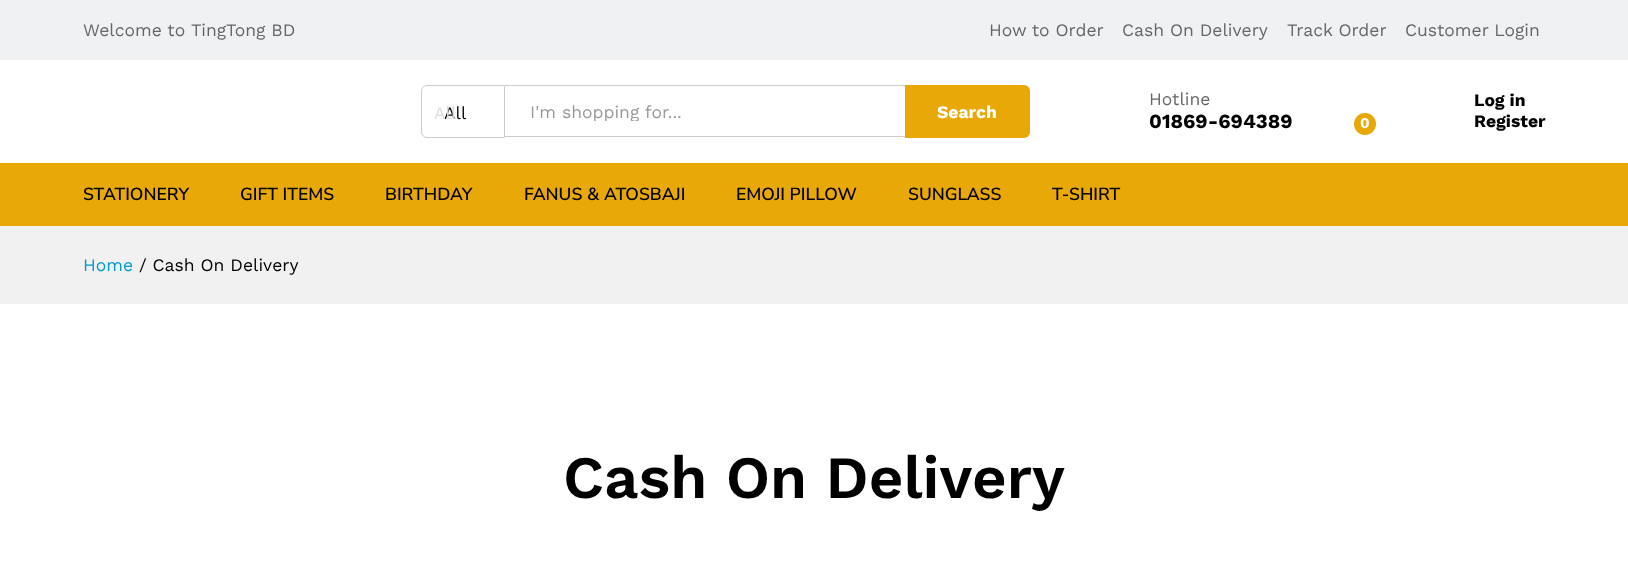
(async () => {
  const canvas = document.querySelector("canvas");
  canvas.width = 1628;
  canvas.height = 564;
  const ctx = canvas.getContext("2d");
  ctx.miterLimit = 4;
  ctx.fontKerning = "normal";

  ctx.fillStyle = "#ffffff";
  ctx.fillRect(0, 0, 1628, 564);
  ctx.fillStyle = "#eff1f2";
  ctx.fillRect(0, 0, 1628, 60);
  ctx.beginPath();
  ctx.roundRect(421.5, 85.5, 83, 52, [5.5, 0, 0, 5.5]);
  ctx.strokeStyle = "#cccccc";
  ctx.stroke();
  ctx.fillStyle = "#cccccc";
  ctx.fillRect(505, 85, 400, 1);
  ctx.fillRect(505, 136, 400, 1);
  ctx.fillStyle = "#e8a807";
  ctx.beginPath();
  ctx.roundRect(905, 85, 125, 53, [0, 6, 6, 0]);
  ctx.fill();
  ctx.beginPath();
  ctx.arc(1365, 124, 11, 0, Math.PI * 2);
  ctx.fill();
  ctx.fillRect(0, 163, 1628, 63);
  ctx.fillStyle = "#f1f1f1";
  ctx.fillRect(0, 226, 1628, 78);
  ctx.font = "17.5px Work Sans";
  ctx.fillStyle = "#666666";
  for (const [text, x, y] of [
    ["Welcome to", 83, 36],
    ["TingTong BD", 191, 36],
    ["How to Order", 989, 36],
    ["Cash On Delivery", 1122, 36],
    ["Track Order", 1287, 36],
    ["Customer Login", 1405, 36],
  ]) {
    ctx.fillText(text, x, y);
  }
  ctx.fillStyle = "#000000";
  ctx.fillText("All", 444, 119);
  ctx.fillStyle = "#d9d9d9";
  ctx.fillText("All", 434, 119);
  ctx.save();
  ctx.beginPath();
  ctx.rect(530, 101, 350, 20);
  ctx.clip();
  ctx.fillStyle = "#999999";
  ctx.fillText("I'm shopping for...", 530, 118);
  ctx.restore();
  ctx.font = "bold 17.5px Work Sans";
  ctx.fillStyle = "#ffffff";
  ctx.fillText("Search", 937, 118);
  ctx.font = "17.5px Work Sans";
  ctx.fillStyle = "#666666";
  ctx.fillText("Hotline", 1149, 105);
  ctx.font = "bold 20px Work Sans";
  ctx.fillStyle = "#000000";
  ctx.fillText("01869-694389", 1149, 128);
  ctx.font = "bold 15px Work Sans";
  ctx.fillStyle = "#ffffff";
  ctx.fillText("0", 1360, 128);
  ctx.font = "bold 17.5px Work Sans";
  ctx.fillStyle = "#000000";
  ctx.fillText("Log in", 1474, 106);
  ctx.fillText("Register", 1474, 127);
  ctx.font = "600 17.5px Nunito Sans";
  for (const [text, x, y] of [
    ["STATIONERY", 83, 200],
    ["GIFT ITEMS", 240, 200],
    ["BIRTHDAY", 385, 200],
    ["FANUS & ATOSBAJI", 524, 200],
    ["EMOJI PILLOW", 736, 200],
    ["SUNGLASS", 908, 200],
    ["T-SHIRT", 1052, 200],
  ]) {
    ctx.fillText(text, x, y);
  }
  ctx.font = "17.5px Work Sans";
  ctx.fillStyle = "#0099cc";
  ctx.fillText("Home", 83, 271);
  ctx.fillStyle = "#000000";
  ctx.fillText("/ Cash On Delivery", 139, 271);
  ctx.font = "600 60px Work Sans";
  ctx.fillText("Cash On Delivery", 563, 498);
})();
